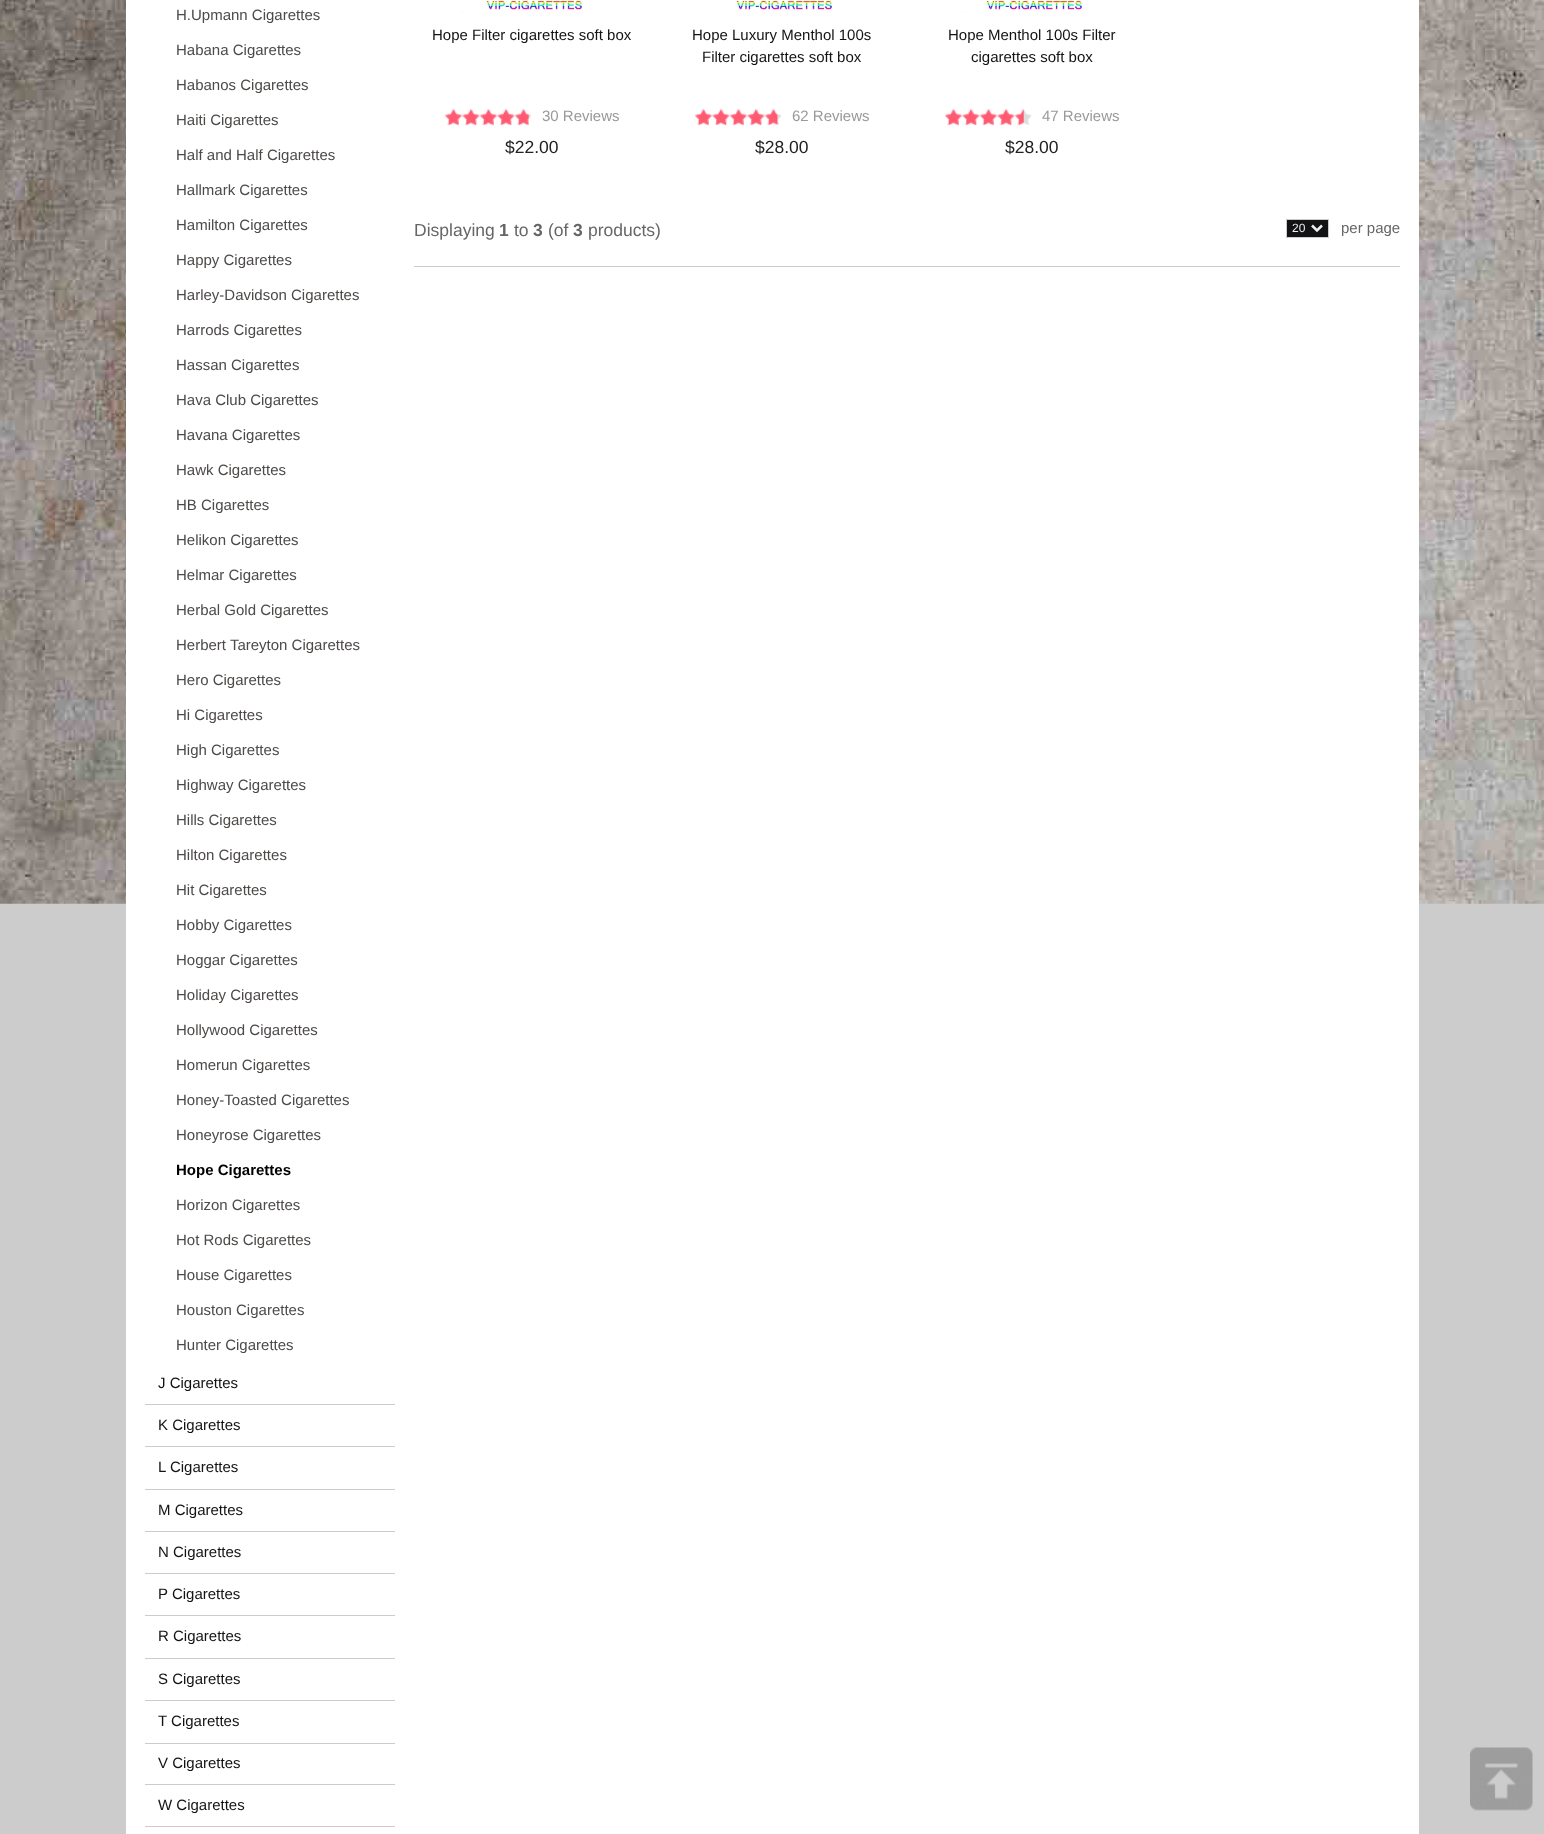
(async () => {
  const canvas = document.querySelector("canvas");
  canvas.width = 1544;
  canvas.height = 1834;
  const ctx = canvas.getContext("2d");
  ctx.miterLimit = 4;
  ctx.fontKerning = "normal";
  async function loadImage(src) {
    const img = new Image();
    img.src = src;
    await img.decode();
    return img;
  }
  let path;

  ctx.fillStyle = "#cccccc";
  ctx.fillRect(0, 0, 1544, 1834);
  ctx.drawImage(await loadImage("img/1.png"), 0, 0, 1544, 904);
  for (const [x, y, w, h, color] of [
    [126, 0, 1293, 1834, "#ffffff"],
    [145, 1404, 250, 1, "#cccccc"],
    [145, 1446, 250, 1, "#cccccc"],
    [145, 1489, 250, 1, "#cccccc"],
    [145, 1531, 250, 1, "#cccccc"],
    [145, 1573, 250, 1, "#cccccc"],
    [145, 1615, 250, 1, "#cccccc"],
    [145, 1658, 250, 1, "#cccccc"],
    [145, 1700, 250, 1, "#cccccc"],
    [145, 1743, 250, 1, "#cccccc"],
    [145, 1784, 250, 1, "#cccccc"],
    [145, 1826, 250, 1, "#cccccc"],
  ]) {
    ctx.fillStyle = color;
    ctx.fillRect(x, y, w, h);
  }
  ctx.drawImage(await loadImage("img/2.png"), 460, 0, 123, 12);
  ctx.drawImage(await loadImage("img/3.png"), 445, 109, 87, 16);
  ctx.drawImage(await loadImage("img/4.png"), 445, 109, 84, 17);
  ctx.drawImage(await loadImage("img/5.png"), 710, 0, 123, 12);
  ctx.drawImage(await loadImage("img/6.png"), 695, 109, 87, 16);
  ctx.drawImage(await loadImage("img/7.png"), 695, 109, 83, 17);
  ctx.drawImage(await loadImage("img/8.png"), 961, 0, 122, 12);
  ctx.drawImage(await loadImage("img/9.png"), 945, 109, 87, 16);
  ctx.drawImage(await loadImage("img/10.png"), 945, 109, 79, 17);
  ctx.fillRect(414, 266, 986, 1);
  ctx.fillStyle = "#121314";
  ctx.beginPath();
  ctx.rect(1286.5, 219.5, 42, 18);
  ctx.fill();
  ctx.strokeStyle = "#cccccc";
  ctx.stroke();
  path = new Path2D("M1312 225.5L1317 230.5L1322 225.5");
  ctx.strokeStyle = "#eeeeee";
  ctx.lineWidth = 2.5;
  ctx.stroke(path);
  ctx.drawImage(await loadImage("img/11.png"), 1470, 1747, 63, 64);
  ctx.font = "15px Liberation Sans";
  ctx.fillStyle = "#4d4a48";
  for (const [text, x, y] of [
    ["H.Upmann Cigarettes", 176, 20],
    ["Habana Cigarettes", 176, 55],
    ["Habanos Cigarettes", 176, 90],
    ["Haiti Cigarettes", 176, 125],
    ["Half and Half Cigarettes", 176, 160],
    ["Hallmark Cigarettes", 176, 195],
    ["Hamilton Cigarettes", 176, 230],
    ["Happy Cigarettes", 176, 265],
    ["Harley-Davidson Cigarettes", 176, 300],
    ["Harrods Cigarettes", 176, 335],
    ["Hassan Cigarettes", 176, 370],
    ["Hava Club Cigarettes", 176, 405],
    ["Havana Cigarettes", 176, 440],
    ["Hawk Cigarettes", 176, 475],
    ["HB Cigarettes", 176, 510],
    ["Helikon Cigarettes", 176, 545],
    ["Helmar Cigarettes", 176, 580],
    ["Herbal Gold Cigarettes", 176, 615],
    ["Herbert Tareyton Cigarettes", 176, 650],
    ["Hero Cigarettes", 176, 685],
    ["Hi Cigarettes", 176, 720],
    ["High Cigarettes", 176, 755],
    ["Highway Cigarettes", 176, 790],
    ["Hills Cigarettes", 176, 825],
    ["Hilton Cigarettes", 176, 860],
    ["Hit Cigarettes", 176, 895],
    ["Hobby Cigarettes", 176, 930],
    ["Hoggar Cigarettes", 176, 965],
    ["Holiday Cigarettes", 176, 1000],
    ["Hollywood Cigarettes", 176, 1035],
    ["Homerun Cigarettes", 176, 1070],
    ["Honey-Toasted Cigarettes", 176, 1105],
    ["Honeyrose Cigarettes", 176, 1140],
  ]) {
    ctx.fillText(text, x, y);
  }
  ctx.font = "bold 15px Liberation Sans";
  ctx.fillStyle = "#000000";
  ctx.fillText("Hope Cigarettes", 176, 1175);
  ctx.font = "15px Liberation Sans";
  ctx.fillStyle = "#4d4a48";
  for (const [text, x, y] of [
    ["Horizon Cigarettes", 176, 1210],
    ["Hot Rods Cigarettes", 176, 1245],
    ["House Cigarettes", 176, 1280],
    ["Houston Cigarettes", 176, 1315],
    ["Hunter Cigarettes", 176, 1350],
  ]) {
    ctx.fillText(text, x, y);
  }
  ctx.fillStyle = "#121314";
  for (const [text, x, y] of [
    ["J Cigarettes", 158, 1388],
    ["K Cigarettes", 158, 1430],
    ["L Cigarettes", 158, 1472],
    ["M Cigarettes", 158, 1515],
    ["N Cigarettes", 158, 1557],
    ["P Cigarettes", 158, 1599],
    ["R Cigarettes", 158, 1641],
    ["S Cigarettes", 158, 1684],
    ["T Cigarettes", 158, 1726],
    ["V Cigarettes", 158, 1768],
    ["W Cigarettes", 158, 1810],
    ["Hope Filter cigarettes soft box", 432, 40],
  ]) {
    ctx.fillText(text, x, y);
  }
  ctx.fillStyle = "#999999";
  ctx.fillText("30 Reviews", 542, 121);
  ctx.font = "17.5px Liberation Sans";
  ctx.fillStyle = "#212223";
  ctx.fillText("$22.00", 505, 153);
  ctx.font = "15px Liberation Sans";
  ctx.fillStyle = "#121314";
  ctx.fillText("Hope Luxury Menthol 100s", 692, 40);
  ctx.fillText("Filter cigarettes soft box", 702, 62);
  ctx.fillStyle = "#999999";
  ctx.fillText("62 Reviews", 792, 121);
  ctx.font = "17.5px Liberation Sans";
  ctx.fillStyle = "#212223";
  ctx.fillText("$28.00", 755, 153);
  ctx.font = "15px Liberation Sans";
  ctx.fillStyle = "#121314";
  ctx.fillText("Hope Menthol 100s Filter", 948, 40);
  ctx.fillText("cigarettes soft box", 971, 62);
  ctx.fillStyle = "#999999";
  ctx.fillText("47 Reviews", 1042, 121);
  ctx.font = "17.5px Liberation Sans";
  ctx.fillStyle = "#212223";
  ctx.fillText("$28.00", 1005, 153);
  ctx.fillStyle = "#666666";
  ctx.fillText("Displaying", 414, 236);
  ctx.font = "bold 17.5px Liberation Sans";
  ctx.fillText("1", 499, 236);
  ctx.font = "17.5px Liberation Sans";
  ctx.fillText("to", 514, 236);
  ctx.font = "bold 17.5px Liberation Sans";
  ctx.fillText("3", 533, 236);
  ctx.font = "17.5px Liberation Sans";
  ctx.fillText("(of", 548, 236);
  ctx.font = "bold 17.5px Liberation Sans";
  ctx.fillText("3", 573, 236);
  ctx.font = "17.5px Liberation Sans";
  ctx.fillText("products)", 588, 236);
  ctx.font = "12px Liberation Sans";
  ctx.fillStyle = "#eeeeee";
  ctx.fillText("20", 1292, 232);
  ctx.font = "15px Liberation Sans";
  ctx.fillStyle = "#666666";
  ctx.fillText("per page", 1341, 233);
})();
